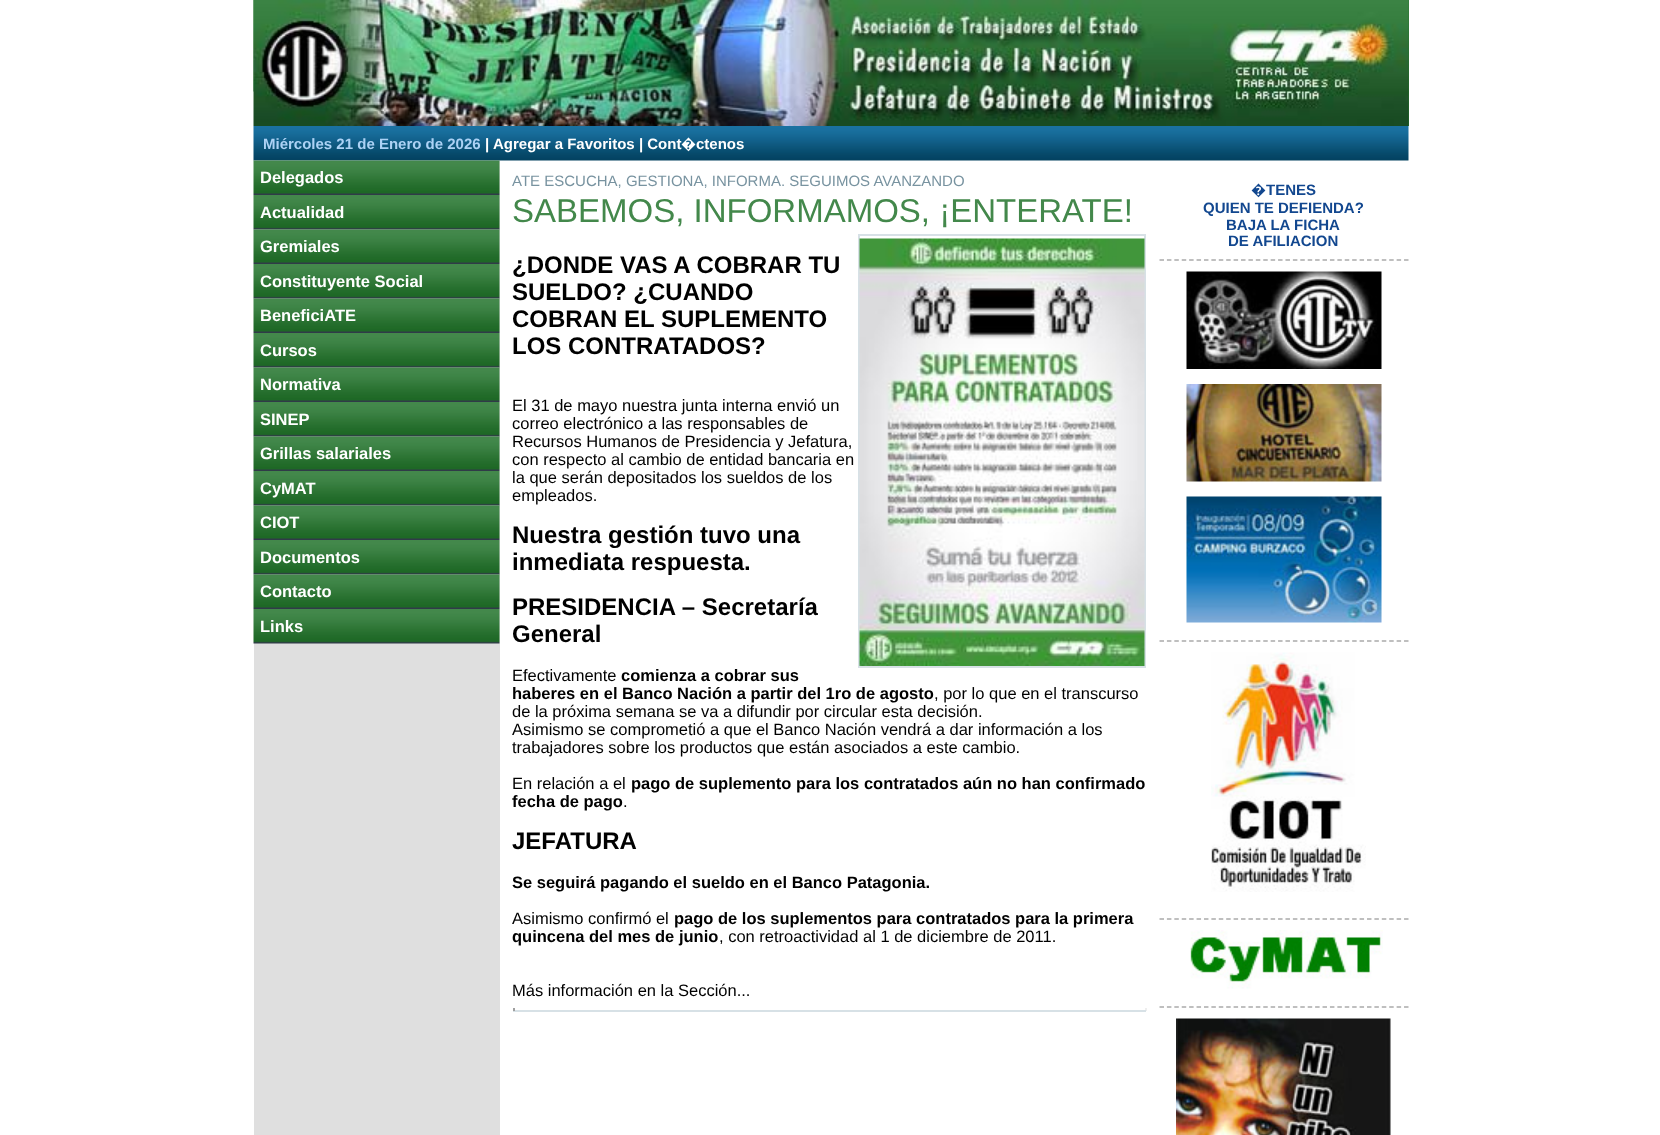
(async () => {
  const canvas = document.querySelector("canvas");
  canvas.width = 1660;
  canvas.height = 1135;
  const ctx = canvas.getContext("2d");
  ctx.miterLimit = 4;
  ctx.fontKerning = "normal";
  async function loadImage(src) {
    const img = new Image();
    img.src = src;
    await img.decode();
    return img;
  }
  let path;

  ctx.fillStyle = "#ffffff";
  ctx.fillRect(0, 0, 1660, 1135);
  ctx.fillStyle = "#226c2a";
  ctx.fillRect(1408, 0, 1, 126);
  ctx.drawImage(await loadImage("img/1.png"), 253, 0, 1156, 92);
  ctx.drawImage(await loadImage("img/2.png"), 253, 0, 1156, 126);
  ctx.drawImage(await loadImage("img/3.png"), 253, 126, 1156, 35);
  ctx.fillStyle = "#dfdfdf";
  ctx.fillRect(254, 161, 246, 974);
  ctx.drawImage(await loadImage("img/4.png"), 253, 160, 247, 35);
  ctx.drawImage(await loadImage("img/5.png"), 253, 195, 247, 35);
  ctx.drawImage(await loadImage("img/6.png"), 253, 229, 247, 35);
  ctx.drawImage(await loadImage("img/5.png"), 253, 264, 247, 35);
  ctx.drawImage(await loadImage("img/6.png"), 253, 298, 247, 35);
  ctx.drawImage(await loadImage("img/5.png"), 253, 333, 247, 35);
  ctx.drawImage(await loadImage("img/6.png"), 253, 367, 247, 35);
  ctx.drawImage(await loadImage("img/5.png"), 253, 402, 247, 35);
  ctx.drawImage(await loadImage("img/6.png"), 253, 436, 247, 35);
  ctx.drawImage(await loadImage("img/5.png"), 253, 471, 247, 35);
  ctx.drawImage(await loadImage("img/6.png"), 253, 505, 247, 35);
  ctx.drawImage(await loadImage("img/5.png"), 253, 540, 247, 35);
  ctx.drawImage(await loadImage("img/6.png"), 253, 574, 247, 35);
  ctx.drawImage(await loadImage("img/5.png"), 253, 609, 247, 35);
  ctx.strokeStyle = "#d7e1e6";
  ctx.lineWidth = 2;
  ctx.strokeRect(859, 235, 286, 432);
  ctx.drawImage(await loadImage("img/7.png"), 859, 238, 286, 428);
  for (const [x, y, w, h, color] of [
    [1145, 1008, 2, 3, "#eeeeee"],
    [513, 1010, 633, 2, "#d7e1e6"],
    [513, 1008, 2, 3, "#9f9f9f"],
  ]) {
    ctx.fillStyle = color;
    ctx.fillRect(x, y, w, h);
  }
  path = new Path2D("M1159.5 260H1408.5");
  ctx.strokeStyle = "#ababab";
  ctx.lineWidth = 1.5;
  ctx.setLineDash([4.5, 2.91]);
  ctx.stroke(path);
  ctx.drawImage(await loadImage("img/8.png"), 1186, 271, 196, 98);
  ctx.drawImage(await loadImage("img/9.png"), 1186, 384, 196, 98);
  ctx.drawImage(await loadImage("img/10.png"), 1186, 496, 196, 127);
  path = new Path2D("M1159.5 641H1408.5");
  ctx.stroke(path);
  ctx.drawImage(await loadImage("img/11.png"), 1211, 652, 155, 240);
  path = new Path2D("M1159.5 919H1408.5");
  ctx.stroke(path);
  ctx.drawImage(await loadImage("img/12.png"), 1190, 930, 193, 59);
  path = new Path2D("M1159.5 1007H1408.5");
  ctx.stroke(path);
  ctx.drawImage(await loadImage("img/13.png"), 1176, 1018, 215, 117);
  ctx.font = "bold 15px Liberation Sans";
  ctx.fillStyle = "#acd2f5";
  ctx.fillText("Miércoles 21 de Enero de 2026", 263, 149);
  ctx.fillStyle = "#ffffff";
  ctx.fillText("|", 485, 149);
  ctx.fillText("Agregar a Favoritos | Cont", 493, 149);
  ctx.font = "bold 15px Noto Sans";
  ctx.fillText("�", 681, 149);
  ctx.font = "bold 15px Liberation Sans";
  ctx.fillText("ctenos", 696, 149);
  ctx.font = "bold 16.5px Liberation Sans";
  for (const [text, x, y] of [
    ["Delegados", 260, 183],
    ["Actualidad", 260, 218],
    ["Gremiales", 260, 252],
    ["Constituyente Social", 260, 287],
    ["BeneficiATE", 260, 321],
    ["Cursos", 260, 356],
    ["Normativa", 260, 390],
    ["SINEP", 260, 425],
    ["Grillas salariales", 260, 459],
    ["CyMAT", 260, 494],
    ["CIOT", 260, 528],
    ["Documentos", 260, 563],
    ["Contacto", 260, 597],
    ["Links", 260, 632],
  ]) {
    ctx.fillText(text, x, y);
  }
  ctx.font = "15px Liberation Sans";
  ctx.fillStyle = "#7893a0";
  ctx.fillText("ATE ESCUCHA, GESTIONA, INFORMA. SEGUIMOS AVANZANDO", 512, 186);
  ctx.font = "33px Liberation Sans";
  ctx.fillStyle = "#43884b";
  ctx.fillText("SABEMOS, INFORMAMOS, ¡ENTERATE!", 512, 222);
  ctx.font = "bold 24px Liberation Sans";
  ctx.fillStyle = "#000000";
  for (const [text, x, y] of [
    ["¿DONDE VAS A COBRAR TU", 512, 273],
    ["SUELDO? ¿CUANDO", 512, 300],
    ["COBRAN EL SUPLEMENTO", 512, 327],
    ["LOS CONTRATADOS?", 512, 354],
  ]) {
    ctx.fillText(text, x, y);
  }
  ctx.font = "16.5px Liberation Sans";
  for (const [text, x, y] of [
    ["El 31 de mayo nuestra junta interna envió un", 512, 411],
    ["correo electrónico a las responsables de", 512, 429],
    ["Recursos Humanos de Presidencia y Jefatura,", 512, 447],
    ["con respecto al cambio de entidad bancaria en", 512, 465],
    ["la que serán depositados los sueldos de los", 512, 483],
    ["empleados.", 512, 501],
  ]) {
    ctx.fillText(text, x, y);
  }
  ctx.font = "bold 24px Liberation Sans";
  for (const [text, x, y] of [
    ["Nuestra gestión tuvo una", 512, 543],
    ["inmediata respuesta.", 512, 570],
    ["PRESIDENCIA – Secretaría", 512, 615],
    ["General", 512, 642],
  ]) {
    ctx.fillText(text, x, y);
  }
  ctx.font = "16.5px Liberation Sans";
  ctx.fillText("Efectivamente", 512, 681);
  ctx.font = "bold 16.5px Liberation Sans";
  ctx.fillText("comienza a cobrar sus", 621, 681);
  ctx.fillText("haberes en el Banco Nación a partir del 1ro de agosto", 512, 699);
  ctx.font = "16.5px Liberation Sans";
  for (const [text, x, y] of [
    [", por lo que en el transcurso", 934, 699],
    ["de la próxima semana se va a difundir por circular esta decisión.", 512, 717],
    ["Asimismo se comprometió a que el Banco Nación vendrá a dar información a los", 512, 735],
    ["trabajadores sobre los productos que están asociados a este cambio.", 512, 753],
    ["En relación a el", 512, 789],
  ]) {
    ctx.fillText(text, x, y);
  }
  ctx.font = "bold 16.5px Liberation Sans";
  ctx.fillText("pago de suplemento para los contratados aún no han confirmado", 631, 789);
  ctx.fillText("fecha de pago", 512, 807);
  ctx.font = "16.5px Liberation Sans";
  ctx.fillText(".", 623, 807);
  ctx.font = "bold 24px Liberation Sans";
  ctx.fillText("JEFATURA", 512, 849);
  ctx.font = "bold 16.5px Liberation Sans";
  ctx.fillText("Se seguirá pagando el sueldo en el Banco Patagonia.", 512, 888);
  ctx.font = "16.5px Liberation Sans";
  ctx.fillText("Asimismo confirmó el", 512, 924);
  ctx.font = "bold 16.5px Liberation Sans";
  ctx.fillText("pago de los suplementos para contratados para la primera", 674, 924);
  ctx.fillText("quincena del mes de junio", 512, 942);
  ctx.font = "16.5px Liberation Sans";
  ctx.fillText(", con retroactividad al 1 de diciembre de 2011.", 719, 942);
  ctx.fillText("Más información en la Sección...", 512, 996);
  ctx.font = "bold 15px Noto Sans";
  ctx.fillStyle = "#12478f";
  ctx.fillText("�", 1251, 195);
  ctx.font = "bold 15px Liberation Sans";
  for (const [text, x, y] of [
    ["TENES", 1266, 195],
    ["QUIEN TE DEFIENDA?", 1203, 213],
    ["BAJA LA FICHA", 1226, 230],
    ["DE AFILIACION", 1228, 246],
  ]) {
    ctx.fillText(text, x, y);
  }
})();
